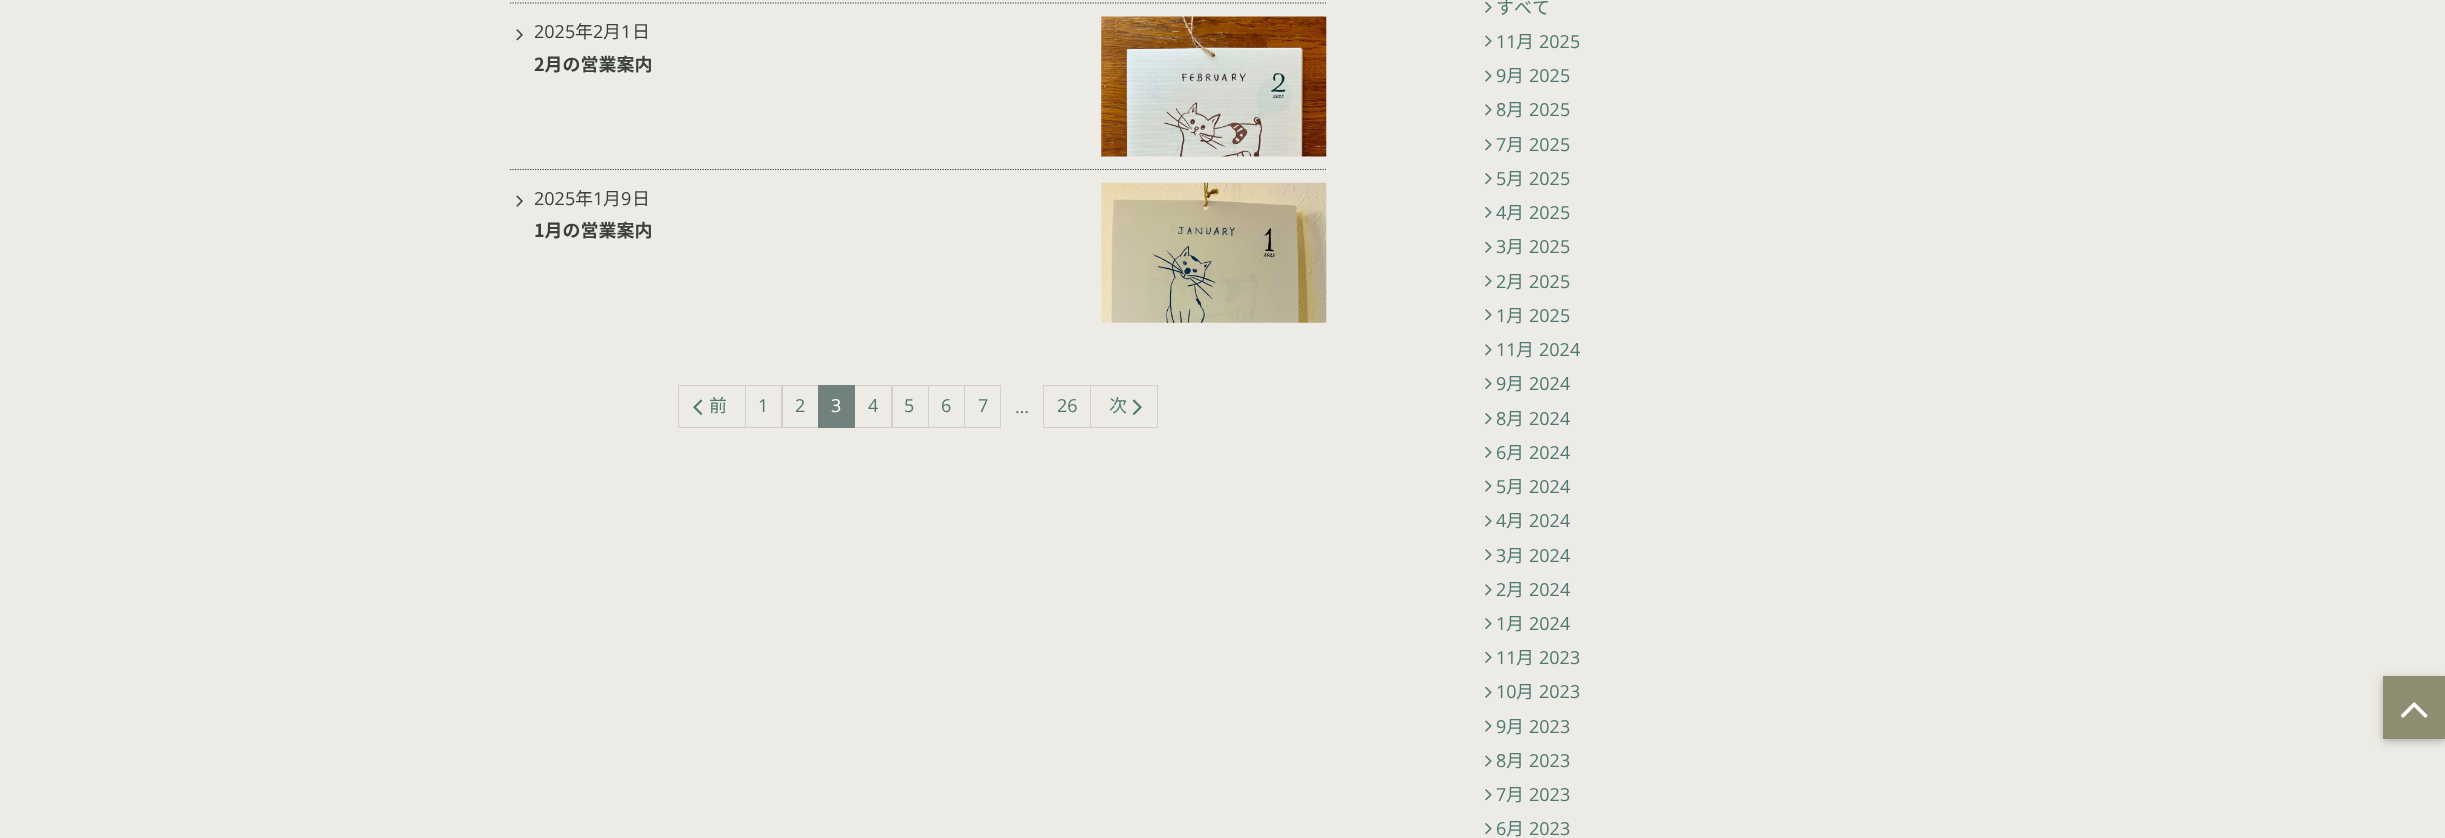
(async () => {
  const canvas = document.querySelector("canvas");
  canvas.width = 2445;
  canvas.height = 838;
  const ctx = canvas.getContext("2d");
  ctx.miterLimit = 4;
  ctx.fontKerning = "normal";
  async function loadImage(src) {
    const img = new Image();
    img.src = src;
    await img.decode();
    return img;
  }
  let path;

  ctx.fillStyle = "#edebe6";
  ctx.fillRect(0, 0, 2445, 838);
  path = new Path2D("M510 3H1326");
  ctx.strokeStyle = "#3a413b";
  ctx.lineWidth = 1.2;
  ctx.setLineDash([1.25, 1.25]);
  ctx.stroke(path);
  ctx.drawImage(await loadImage("img/1.png"), 516, 29, 7, 12);
  ctx.drawImage(await loadImage("img/2.png"), 1101, 16, 226, 141);
  path = new Path2D("M510 169.5H1326");
  ctx.stroke(path);
  ctx.drawImage(await loadImage("img/3.png"), 516, 195, 7, 12);
  ctx.drawImage(await loadImage("img/4.png"), 1101, 182, 226, 141);
  ctx.strokeStyle = "#d2cfcd";
  ctx.lineWidth = 1;
  ctx.setLineDash([]);
  ctx.strokeRect(678.5, 385.5, 67, 42);
  ctx.drawImage(await loadImage("img/5.png"), 693, 399, 10, 16);
  ctx.strokeRect(745.5, 385.5, 37, 42);
  ctx.strokeRect(781.5, 385.5, 37, 42);
  ctx.strokeRect(854.5, 385.5, 38, 42);
  ctx.fillStyle = "#70817e";
  ctx.fillRect(818, 385, 37, 43);
  ctx.strokeRect(891.5, 385.5, 37, 42);
  ctx.strokeRect(928.5, 385.5, 36, 42);
  ctx.strokeRect(964.5, 385.5, 36, 42);
  ctx.strokeRect(1043.5, 385.5, 47, 42);
  ctx.strokeRect(1090.5, 385.5, 67, 42);
  ctx.drawImage(await loadImage("img/6.png"), 1132, 399, 10, 16);
  ctx.drawImage(await loadImage("img/7.png"), 1485, 1, 7, 12);
  ctx.drawImage(await loadImage("img/8.png"), 1485, 35, 7, 12);
  ctx.drawImage(await loadImage("img/8.png"), 1485, 70, 7, 12);
  ctx.drawImage(await loadImage("img/9.png"), 1485, 104, 7, 12);
  ctx.drawImage(await loadImage("img/9.png"), 1485, 139, 7, 12);
  ctx.drawImage(await loadImage("img/10.png"), 1485, 173, 7, 12);
  ctx.drawImage(await loadImage("img/7.png"), 1485, 206, 7, 12);
  ctx.drawImage(await loadImage("img/7.png"), 1485, 241, 7, 12);
  ctx.drawImage(await loadImage("img/8.png"), 1485, 275, 7, 12);
  ctx.drawImage(await loadImage("img/9.png"), 1485, 309, 7, 12);
  ctx.drawImage(await loadImage("img/9.png"), 1485, 344, 7, 12);
  ctx.drawImage(await loadImage("img/10.png"), 1485, 378, 7, 12);
  ctx.drawImage(await loadImage("img/10.png"), 1485, 413, 7, 12);
  ctx.drawImage(await loadImage("img/7.png"), 1485, 446, 7, 12);
  ctx.drawImage(await loadImage("img/8.png"), 1485, 480, 7, 12);
  ctx.drawImage(await loadImage("img/8.png"), 1485, 515, 7, 12);
  ctx.drawImage(await loadImage("img/9.png"), 1485, 549, 7, 12);
  ctx.drawImage(await loadImage("img/9.png"), 1485, 584, 7, 12);
  ctx.drawImage(await loadImage("img/10.png"), 1485, 618, 7, 12);
  ctx.drawImage(await loadImage("img/7.png"), 1485, 651, 7, 12);
  ctx.drawImage(await loadImage("img/7.png"), 1485, 686, 7, 12);
  ctx.drawImage(await loadImage("img/8.png"), 1485, 720, 7, 12);
  ctx.drawImage(await loadImage("img/8.png"), 1485, 755, 7, 12);
  ctx.drawImage(await loadImage("img/9.png"), 1485, 789, 7, 12);
  ctx.drawImage(await loadImage("img/10.png"), 1485, 823, 7, 12);
  ctx.fillStyle = "rgba(0, 0, 0, 0.12)";
  ctx.filter = "blur(6px)";
  ctx.beginPath();
  ctx.rect(2383, 679, 62, 62);
  ctx.fill();
  ctx.filter = "none";
  ctx.fillStyle = "rgba(0, 0, 0, 0.16)";
  ctx.filter = "blur(3px)";
  ctx.beginPath();
  ctx.rect(2383, 679, 62, 62);
  ctx.fill();
  ctx.filter = "none";
  ctx.fillStyle = "#8d8d71";
  ctx.fillRect(2383, 676, 62, 63);
  ctx.drawImage(await loadImage("img/11.png"), 2400, 702, 28, 16);
  ctx.font = "18px Open Sans";
  ctx.fillStyle = "#3a413b";
  ctx.fillText("2025", 534, 38);
  ctx.font = "18px Noto Sans JP";
  ctx.fillText("年", 575, 38);
  ctx.font = "18px Open Sans";
  ctx.fillText("2", 593, 38);
  ctx.font = "18px Noto Sans JP";
  ctx.fillText("月", 603, 38);
  ctx.font = "18px Open Sans";
  ctx.fillText("1", 621, 38);
  ctx.font = "18px Noto Sans JP";
  ctx.fillText("日", 632, 38);
  ctx.font = "bold 18px Noto Sans JP";
  ctx.fillText("2月の営業案内", 534, 71);
  ctx.font = "18px Open Sans";
  ctx.fillText("2025", 534, 205);
  ctx.font = "18px Noto Sans JP";
  ctx.fillText("年", 575, 205);
  ctx.font = "18px Open Sans";
  ctx.fillText("1", 593, 205);
  ctx.font = "18px Noto Sans JP";
  ctx.fillText("月", 603, 205);
  ctx.font = "18px Open Sans";
  ctx.fillText("9", 621, 205);
  ctx.font = "18px Noto Sans JP";
  ctx.fillText("日", 632, 205);
  ctx.font = "bold 18px Noto Sans JP";
  ctx.fillText("1月の営業案内", 534, 237);
  ctx.font = "18px Noto Sans JP";
  ctx.fillStyle = "#507871";
  ctx.fillText("前", 709, 412);
  ctx.font = "18px Open Sans";
  ctx.fillText("1", 758, 412);
  ctx.fillText("2", 795, 412);
  ctx.fillStyle = "#ffffff";
  ctx.fillText("3", 831, 412);
  ctx.fillStyle = "#507871";
  for (const [text, x, y] of [
    ["4", 868, 412],
    ["5", 904, 412],
    ["6", 941, 412],
    ["7", 978, 412],
    ["…", 1015, 413],
    ["26", 1057, 412],
  ]) {
    ctx.fillText(text, x, y);
  }
  ctx.font = "18px Noto Sans JP";
  ctx.fillText("次", 1109, 412);
  ctx.fillText("すべて", 1496, 14);
  ctx.font = "18px Open Sans";
  ctx.fillText("11", 1496, 48);
  ctx.font = "18px Noto Sans JP";
  ctx.fillText("月", 1516, 48);
  ctx.font = "18px Open Sans";
  ctx.fillText("2025", 1539, 48);
  ctx.fillText("9", 1496, 82);
  ctx.font = "18px Noto Sans JP";
  ctx.fillText("月", 1506, 82);
  ctx.font = "18px Open Sans";
  ctx.fillText("2025", 1529, 82);
  ctx.fillText("8", 1496, 116);
  ctx.font = "18px Noto Sans JP";
  ctx.fillText("月", 1506, 116);
  ctx.font = "18px Open Sans";
  ctx.fillText("2025", 1529, 116);
  ctx.fillText("7", 1496, 151);
  ctx.font = "18px Noto Sans JP";
  ctx.fillText("月", 1506, 151);
  ctx.font = "18px Open Sans";
  ctx.fillText("2025", 1529, 151);
  ctx.fillText("5", 1496, 185);
  ctx.font = "18px Noto Sans JP";
  ctx.fillText("月", 1506, 185);
  ctx.font = "18px Open Sans";
  ctx.fillText("2025", 1529, 185);
  ctx.fillText("4", 1496, 219);
  ctx.font = "18px Noto Sans JP";
  ctx.fillText("月", 1506, 219);
  ctx.font = "18px Open Sans";
  ctx.fillText("2025", 1529, 219);
  ctx.fillText("3", 1496, 253);
  ctx.font = "18px Noto Sans JP";
  ctx.fillText("月", 1506, 253);
  ctx.font = "18px Open Sans";
  ctx.fillText("2025", 1529, 253);
  ctx.fillText("2", 1496, 288);
  ctx.font = "18px Noto Sans JP";
  ctx.fillText("月", 1506, 288);
  ctx.font = "18px Open Sans";
  ctx.fillText("2025", 1529, 288);
  ctx.fillText("1", 1496, 322);
  ctx.font = "18px Noto Sans JP";
  ctx.fillText("月", 1506, 322);
  ctx.font = "18px Open Sans";
  ctx.fillText("2025", 1529, 322);
  ctx.fillText("11", 1496, 356);
  ctx.font = "18px Noto Sans JP";
  ctx.fillText("月", 1516, 356);
  ctx.font = "18px Open Sans";
  ctx.fillText("2024", 1539, 356);
  ctx.fillText("9", 1496, 390);
  ctx.font = "18px Noto Sans JP";
  ctx.fillText("月", 1506, 390);
  ctx.font = "18px Open Sans";
  ctx.fillText("2024", 1529, 390);
  ctx.fillText("8", 1496, 425);
  ctx.font = "18px Noto Sans JP";
  ctx.fillText("月", 1506, 425);
  ctx.font = "18px Open Sans";
  ctx.fillText("2024", 1529, 425);
  ctx.fillText("6", 1496, 459);
  ctx.font = "18px Noto Sans JP";
  ctx.fillText("月", 1506, 459);
  ctx.font = "18px Open Sans";
  ctx.fillText("2024", 1529, 459);
  ctx.fillText("5", 1496, 493);
  ctx.font = "18px Noto Sans JP";
  ctx.fillText("月", 1506, 493);
  ctx.font = "18px Open Sans";
  ctx.fillText("2024", 1529, 493);
  ctx.fillText("4", 1496, 527);
  ctx.font = "18px Noto Sans JP";
  ctx.fillText("月", 1506, 527);
  ctx.font = "18px Open Sans";
  ctx.fillText("2024", 1529, 527);
  ctx.fillText("3", 1496, 562);
  ctx.font = "18px Noto Sans JP";
  ctx.fillText("月", 1506, 562);
  ctx.font = "18px Open Sans";
  ctx.fillText("2024", 1529, 562);
  ctx.fillText("2", 1496, 596);
  ctx.font = "18px Noto Sans JP";
  ctx.fillText("月", 1506, 596);
  ctx.font = "18px Open Sans";
  ctx.fillText("2024", 1529, 596);
  ctx.fillText("1", 1496, 630);
  ctx.font = "18px Noto Sans JP";
  ctx.fillText("月", 1506, 630);
  ctx.font = "18px Open Sans";
  ctx.fillText("2024", 1529, 630);
  ctx.fillText("11", 1496, 664);
  ctx.font = "18px Noto Sans JP";
  ctx.fillText("月", 1516, 664);
  ctx.font = "18px Open Sans";
  ctx.fillText("2023", 1539, 664);
  ctx.fillText("10", 1496, 698);
  ctx.font = "18px Noto Sans JP";
  ctx.fillText("月", 1516, 698);
  ctx.font = "18px Open Sans";
  ctx.fillText("2023", 1539, 698);
  ctx.fillText("9", 1496, 733);
  ctx.font = "18px Noto Sans JP";
  ctx.fillText("月", 1506, 733);
  ctx.font = "18px Open Sans";
  ctx.fillText("2023", 1529, 733);
  ctx.fillText("8", 1496, 767);
  ctx.font = "18px Noto Sans JP";
  ctx.fillText("月", 1506, 767);
  ctx.font = "18px Open Sans";
  ctx.fillText("2023", 1529, 767);
  ctx.fillText("7", 1496, 801);
  ctx.font = "18px Noto Sans JP";
  ctx.fillText("月", 1506, 801);
  ctx.font = "18px Open Sans";
  ctx.fillText("2023", 1529, 801);
  ctx.fillText("6", 1496, 835);
  ctx.font = "18px Noto Sans JP";
  ctx.fillText("月", 1506, 835);
  ctx.font = "18px Open Sans";
  ctx.fillText("2023", 1529, 835);
})();
